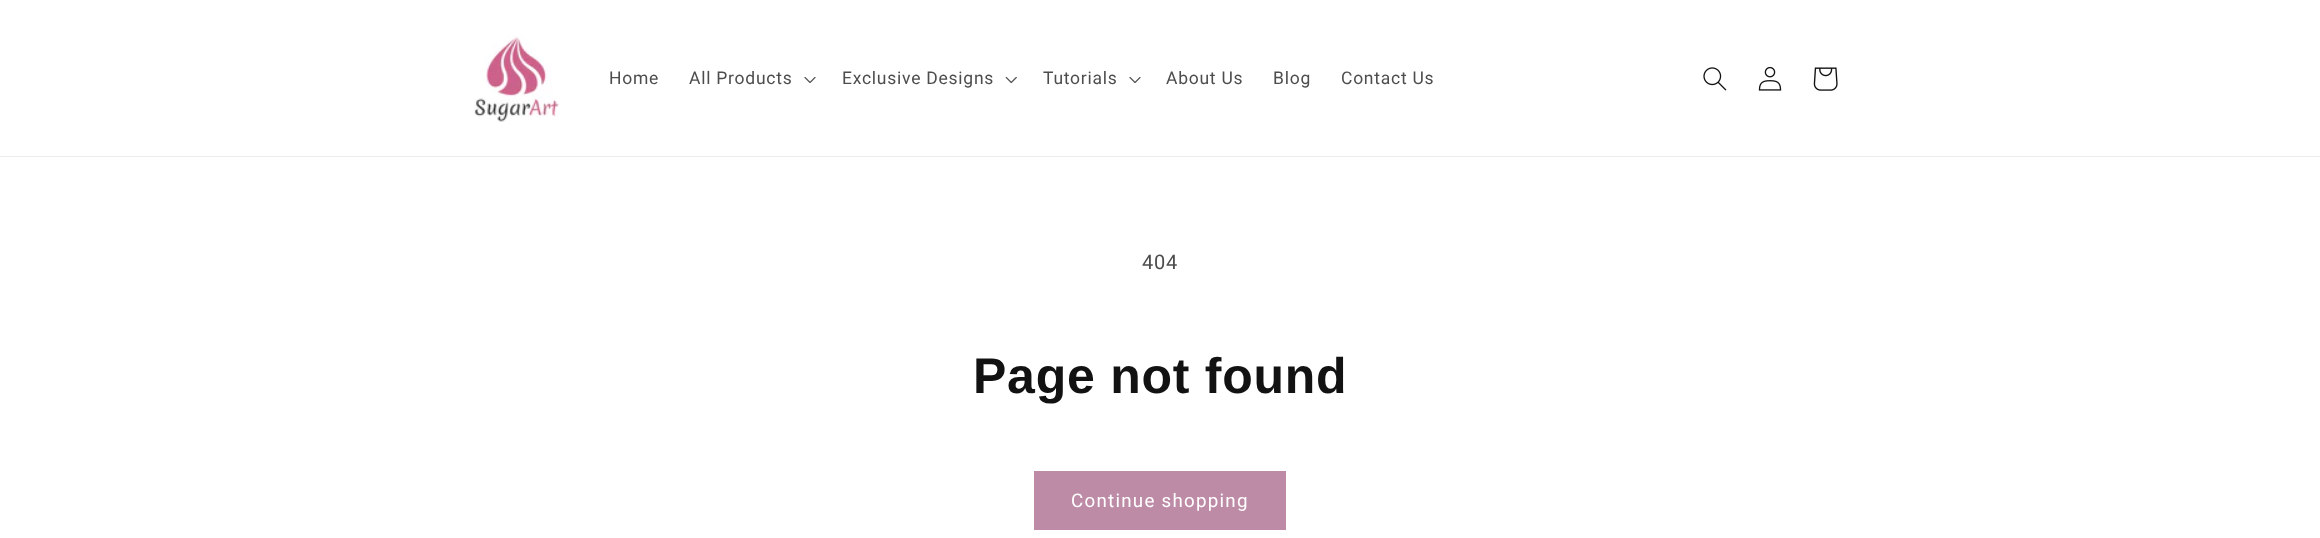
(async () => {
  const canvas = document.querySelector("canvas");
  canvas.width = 2320;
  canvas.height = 538;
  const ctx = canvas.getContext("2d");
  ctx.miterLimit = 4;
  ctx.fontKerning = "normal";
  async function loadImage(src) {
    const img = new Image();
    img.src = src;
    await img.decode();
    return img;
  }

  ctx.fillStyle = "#ffffff";
  ctx.fillRect(0, 0, 2320, 538);
  ctx.fillStyle = "#ececec";
  ctx.fillRect(0, 156, 2320, 1);
  ctx.drawImage(await loadImage("img/1.png"), 474, 35, 85, 87);
  ctx.drawImage(await loadImage("img/2.png"), 804, 77, 12, 6);
  ctx.drawImage(await loadImage("img/3.png"), 1005, 76, 12, 8);
  ctx.drawImage(await loadImage("img/2.png"), 1129, 77, 12, 6);
  ctx.drawImage(await loadImage("img/4.png"), 1703, 67, 24, 24);
  ctx.drawImage(await loadImage("img/5.png"), 1758, 66, 24, 25);
  ctx.drawImage(await loadImage("img/6.png"), 1813, 67, 25, 24);
  ctx.fillStyle = "#be8ba7";
  ctx.fillRect(1034, 471, 252, 59);
  ctx.letterSpacing = "0.75px";
  ctx.font = "17.5px Roboto";
  ctx.fillStyle = "#4d4d4d";
  for (const [text, x, y] of [
    ["Home", 609, 84],
    ["All Products", 689, 84],
    ["Exclusive Designs", 842, 84],
    ["Tutorials", 1043, 84],
    ["About Us", 1166, 84],
    ["Blog", 1273, 84],
    ["Contact Us", 1341, 84],
  ]) {
    ctx.fillText(text, x, y);
  }
  ctx.font = "20px Roboto";
  ctx.fillText("404", 1142, 269);
  ctx.font = "bold 50px Arimo";
  ctx.fillStyle = "#121212";
  ctx.fillText("Page not found", 973, 393);
  ctx.letterSpacing = "1.25px";
  ctx.font = "18.75px Roboto";
  ctx.fillStyle = "#ffffff";
  ctx.fillText("Continue shopping", 1071, 507);
})();
